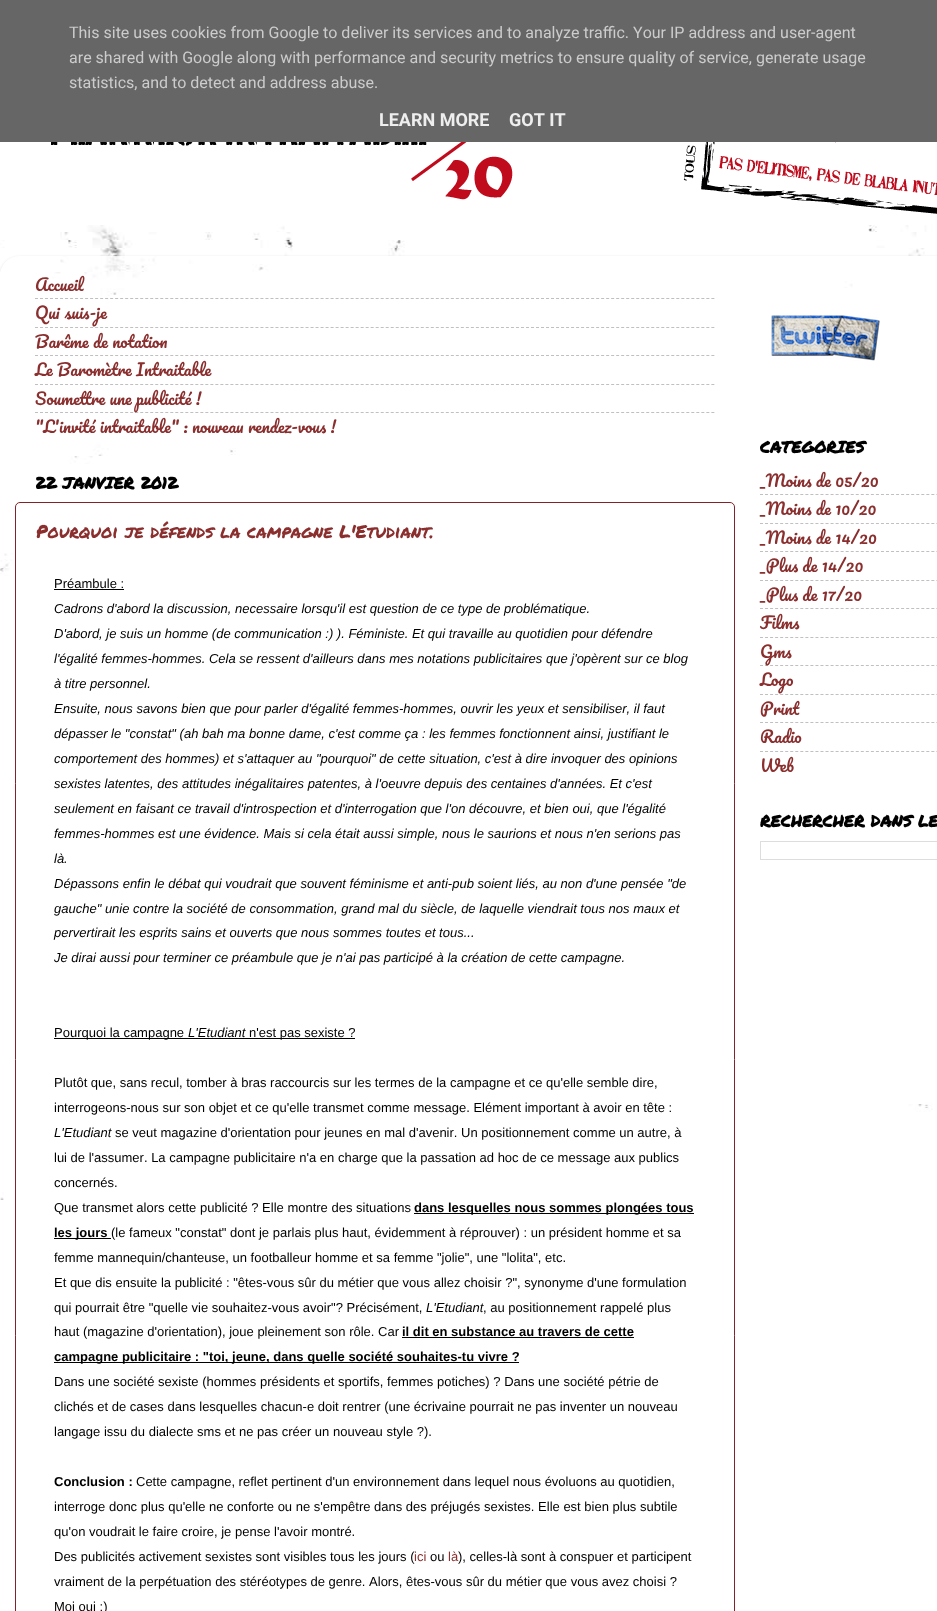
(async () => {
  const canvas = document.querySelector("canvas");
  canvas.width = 937;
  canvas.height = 1611;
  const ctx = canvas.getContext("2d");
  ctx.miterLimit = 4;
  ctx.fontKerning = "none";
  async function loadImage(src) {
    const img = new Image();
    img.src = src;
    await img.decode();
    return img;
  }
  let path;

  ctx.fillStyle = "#ffffff";
  ctx.fillRect(0, 0, 937, 1611);
  ctx.drawImage(await loadImage("img/1.png"), 0, 225, 937, 1375);
  ctx.fillStyle = "#666666";
  ctx.fillRect(0, 0, 937, 142);
  ctx.drawImage(await loadImage("img/2.png"), 0, 142, 937, 83);
  ctx.save();
  path = new Path2D("M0 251H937V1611H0ZM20 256H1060C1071 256 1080 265 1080 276V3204H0V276C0 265 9 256 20 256Z");
  ctx.clip(path, "evenodd");
  ctx.fillStyle = "rgba(0, 0, 0, 0.15)";
  ctx.filter = "blur(1.5px)";
  ctx.beginPath();
  ctx.roundRect(0, 257, 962, 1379, 20);
  ctx.fill();
  ctx.filter = "none";
  ctx.restore();
  ctx.drawImage(await loadImage("img/3.png"), 0, 256, 937, 1355);
  path = new Path2D("M35 298.5H715");
  ctx.strokeStyle = "#bfbfbf";
  ctx.setLineDash([3, 2.01]);
  ctx.stroke(path);
  path = new Path2D("M35 327.5H715");
  ctx.strokeStyle = "#c0c0c0";
  ctx.stroke(path);
  path = new Path2D("M35 355.5H715");
  ctx.stroke(path);
  path = new Path2D("M35 384.5H715");
  ctx.stroke(path);
  path = new Path2D("M35 412.5H715");
  ctx.stroke(path);
  ctx.fillStyle = "#ffffff";
  ctx.beginPath();
  ctx.roundRect(15.5, 502.5, 719, 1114, 4.5);
  ctx.fill();
  ctx.strokeStyle = "#82232a";
  ctx.setLineDash([]);
  ctx.stroke();
  for (const [x, y, w, h, color] of [
    [54, 589, 70, 1, "#000000"],
    [54, 1038, 301, 1, "#000000"],
    [414, 1213, 280, 1, "#000000"],
    [54, 1238, 57, 1, "#000000"],
    [402, 1337, 232, 1, "#000000"],
    [54, 1362, 465, 1, "#000000"],
  ]) {
    ctx.fillStyle = color;
    ctx.fillRect(x, y, w, h);
  }
  ctx.drawImage(await loadImage("img/4.png"), 771, 315, 109, 46);
  path = new Path2D("M760 494.5H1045");
  ctx.strokeStyle = "#c0c0c0";
  ctx.setLineDash([3, 2.04]);
  ctx.stroke(path);
  path = new Path2D("M760 523.5H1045");
  ctx.stroke(path);
  path = new Path2D("M760 551.5H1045");
  ctx.stroke(path);
  path = new Path2D("M760 580.5H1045");
  ctx.stroke(path);
  path = new Path2D("M760 608.5H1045");
  ctx.stroke(path);
  path = new Path2D("M760 637.5H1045");
  ctx.stroke(path);
  path = new Path2D("M760 665.5H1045");
  ctx.stroke(path);
  path = new Path2D("M760 694.5H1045");
  ctx.stroke(path);
  path = new Path2D("M760 722.5H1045");
  ctx.stroke(path);
  path = new Path2D("M760 751.5H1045");
  ctx.stroke(path);
  ctx.strokeStyle = "#dddddd";
  ctx.setLineDash([]);
  ctx.strokeRect(760.5, 841.5, 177, 18);
  ctx.font = "16px Roboto";
  ctx.fillStyle = "#cccccc";
  for (const [text, x, y] of [
    ["This site uses cookies from Google to deliver its services and to analyze traffic. Your IP address and user-agent", 69, 38],
    ["are shared with Google along with performance and security metrics to ensure quality of service, generate usage", 69, 63],
    ["statistics, and to detect and address abuse.", 69, 88],
  ]) {
    ctx.fillText(text, x, y);
  }
  ctx.font = "bold 18px Roboto";
  ctx.fillStyle = "#eeeeee";
  ctx.fillText("LEARN MORE", 379, 126);
  ctx.fillText("GOT IT", 509, 126);
  ctx.font = "16.25px Pacifico";
  ctx.fillStyle = "#8a2e2e";
  ctx.fillText("Accueil", 35, 291);
  ctx.wordSpacing = "1px";
  ctx.fillText("Qui suis-je", 35, 319);
  ctx.wordSpacing = "0px";
  for (const [text, x, y] of [
    ["Barême de notation", 35, 348],
    ["Le Baromètre Intraitable", 35, 376],
    ["Soumettre une publicité !", 35, 405],
    ["\"L'invité intraitable\" : nouveau rendez-vous !", 35, 433],
  ]) {
    ctx.fillText(text, x, y);
  }
  ctx.font = "bold 16.25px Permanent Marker";
  ctx.fillStyle = "#000000";
  ctx.fillText("22 JANVIER 2012", 35, 489);
  ctx.font = "18px Permanent Marker";
  ctx.fillStyle = "#8a2e2e";
  ctx.fillText("Pourquoi je défends la campagne L'Etudiant.", 36, 538);
  ctx.font = "13px Liberation Sans";
  ctx.fillStyle = "#000000";
  ctx.fillText("Préambule :", 54, 588);
  ctx.font = "italic 13px Liberation Sans";
  for (const [text, x, y] of [
    ["Cadrons d'abord la discussion, necessaire lorsqu'il est question de ce type de problématique.", 54, 613],
    ["D'abord, je suis un homme (de communication :) ). Féministe. Et qui travaille au quotidien pour défendre", 54, 638],
    ["l'égalité femmes-hommes. Cela se ressent d'ailleurs dans mes notations publicitaires que j'opèrent sur ce blog", 54, 663],
    ["à titre personnel.", 54, 688],
    ["Ensuite, nous savons bien que pour parler d'égalité femmes-hommes, ouvrir les yeux et sensibiliser, il faut", 54, 713],
    ["dépasser le \"constat\" (ah bah ma bonne dame, c'est comme ça : les femmes fonctionnent ainsi, justifiant le", 54, 738],
    ["comportement des hommes) et s'attaquer au \"pourquoi\" de cette situation, c'est à dire invoquer des opinions", 54, 763],
    ["sexistes latentes, des attitudes inégalitaires patentes, à l'oeuvre depuis des centaines d'années. Et c'est", 54, 788],
    ["seulement en faisant ce travail d'introspection et d'interrogation que l'on découvre, et bien oui, que l'égalité", 54, 813],
    ["femmes-hommes est une évidence. Mais si cela était aussi simple, nous le saurions et nous n'en serions pas", 54, 838],
    ["là.", 54, 863],
    ["Dépassons enfin le débat qui voudrait que souvent féminisme et anti-pub soient liés, au non d'une pensée \"de", 54, 888],
    ["gauche\" unie contre la société de consommation, grand mal du siècle, de laquelle viendrait tous nos maux et", 54, 913],
    ["pervertirait les esprits sains et ouverts que nous sommes toutes et tous...", 54, 937],
    ["Je dirai aussi pour terminer ce préambule que je n'ai pas participé à la création de cette campagne.", 54, 962],
  ]) {
    ctx.fillText(text, x, y);
  }
  ctx.font = "13px Liberation Sans";
  ctx.fillText("Pourquoi la campagne", 54, 1037);
  ctx.font = "italic 13px Liberation Sans";
  ctx.fillText("L'Etudiant", 188, 1037);
  ctx.font = "13px Liberation Sans";
  for (const [text, x, y] of [
    ["n'est pas sexiste ?", 249, 1037],
    ["Plutôt que, sans recul, tomber à bras raccourcis sur les termes de la campagne et ce qu'elle semble dire,", 54, 1087],
    ["interrogeons-nous sur son objet et ce qu'elle transmet comme message. Elément important à avoir en tête :", 54, 1112],
  ]) {
    ctx.fillText(text, x, y);
  }
  ctx.font = "italic 13px Liberation Sans";
  ctx.fillText("L'Etudiant", 54, 1137);
  ctx.font = "13px Liberation Sans";
  for (const [text, x, y] of [
    ["se veut magazine d'orientation pour jeunes en mal d'avenir. Un positionnement comme un autre, à", 115, 1137],
    ["lui de l'assumer. La campagne publicitaire n'a en charge que la passation ad hoc de ce message aux publics", 54, 1162],
    ["concernés.", 54, 1187],
    ["Que transmet alors cette publicité ? Elle montre des situations", 54, 1212],
  ]) {
    ctx.fillText(text, x, y);
  }
  ctx.font = "bold 13px Liberation Sans";
  ctx.fillText("dans lesquelles nous sommes plongées tous", 414, 1212);
  ctx.fillText("les jours", 54, 1237);
  ctx.font = "13px Liberation Sans";
  for (const [text, x, y] of [
    ["(le fameux \"constat\" dont je parlais plus haut, évidemment à réprouver) : un président homme et sa", 111, 1237],
    ["femme mannequin/chanteuse, un footballeur homme et sa femme \"jolie\", une \"lolita\", etc.", 54, 1262],
    ["Et que dis ensuite la publicité : \"êtes-vous sûr du métier que vous allez choisir ?\", synonyme d'une formulation", 54, 1287],
    ["qui pourrait être \"quelle vie souhaitez-vous avoir\"? Précisément,", 54, 1312],
  ]) {
    ctx.fillText(text, x, y);
  }
  ctx.font = "italic 13px Liberation Sans";
  ctx.fillText("L'Etudiant", 426, 1312);
  ctx.font = "13px Liberation Sans";
  ctx.fillText(", au positionnement rappelé plus", 483, 1312);
  ctx.fillText("haut (magazine d'orientation), joue pleinement son rôle. Car", 54, 1336);
  ctx.font = "bold 13px Liberation Sans";
  ctx.fillText("il dit en substance au travers de cette", 402, 1336);
  ctx.fillText("campagne publicitaire : \"toi, jeune, dans quelle société souhaites-tu vivre ?", 54, 1361);
  ctx.font = "13px Liberation Sans";
  for (const [text, x, y] of [
    ["Dans une société sexiste (hommes présidents et sportifs, femmes potiches) ? Dans une société pétrie de", 54, 1386],
    ["clichés et de cases dans lesquelles chacun-e doit rentrer (une écrivaine pourrait ne pas inventer un nouveau", 54, 1411],
    ["langage issu du dialecte sms et ne pas créer un nouveau style ?).", 54, 1436],
  ]) {
    ctx.fillText(text, x, y);
  }
  ctx.font = "bold 13px Liberation Sans";
  ctx.fillText("Conclusion :", 54, 1486);
  ctx.font = "13px Liberation Sans";
  for (const [text, x, y] of [
    ["Cette campagne, reflet pertinent d'un environnement dans lequel nous évoluons au quotidien,", 136, 1486],
    ["interroge donc plus qu'elle ne conforte ou ne s'empêtre dans des préjugés sexistes. Elle est bien plus subtile", 54, 1511],
    ["qu'on voudrait le faire croire, je pense l'avoir montré.", 54, 1536],
    ["Des publicités activement sexistes sont visibles tous les jours (", 54, 1561],
  ]) {
    ctx.fillText(text, x, y);
  }
  ctx.fillStyle = "#8a2e2e";
  ctx.fillText("ici", 414, 1561);
  ctx.fillStyle = "#000000";
  ctx.fillText("ou", 430, 1561);
  ctx.fillStyle = "#8a2e2e";
  ctx.fillText("là", 448, 1561);
  ctx.fillStyle = "#000000";
  for (const [text, x, y] of [
    ["), celles-là sont à conspuer et participent", 458, 1561],
    ["vraiment de la perpétuation des stéréotypes de genre. Alors, êtes-vous sûr du métier que vous avez choisi ?", 54, 1586],
    ["Moi oui :)", 54, 1611],
  ]) {
    ctx.fillText(text, x, y);
  }
  ctx.font = "bold 16.25px Permanent Marker";
  ctx.fillText("CATEGORIES", 760, 453);
  ctx.font = "16.25px Pacifico";
  ctx.fillStyle = "#8a2e2e";
  for (const [text, x, y] of [
    ["_Moins de 05/20", 760, 487],
    ["_Moins de 10/20", 760, 515],
    ["_Moins de 14/20", 760, 544],
    ["_Plus de 14/20", 760, 572],
    ["_Plus de 17/20", 760, 601],
    ["Films", 760, 629],
    ["Gms", 760, 658],
    ["Logo", 760, 686],
    ["Print", 760, 715],
    ["Radio", 760, 743],
    ["Web", 760, 772],
  ]) {
    ctx.fillText(text, x, y);
  }
  ctx.font = "bold 16.25px Permanent Marker";
  ctx.fillStyle = "#000000";
  ctx.fillText("RECHERCHER DANS LE", 760, 827);
})();
